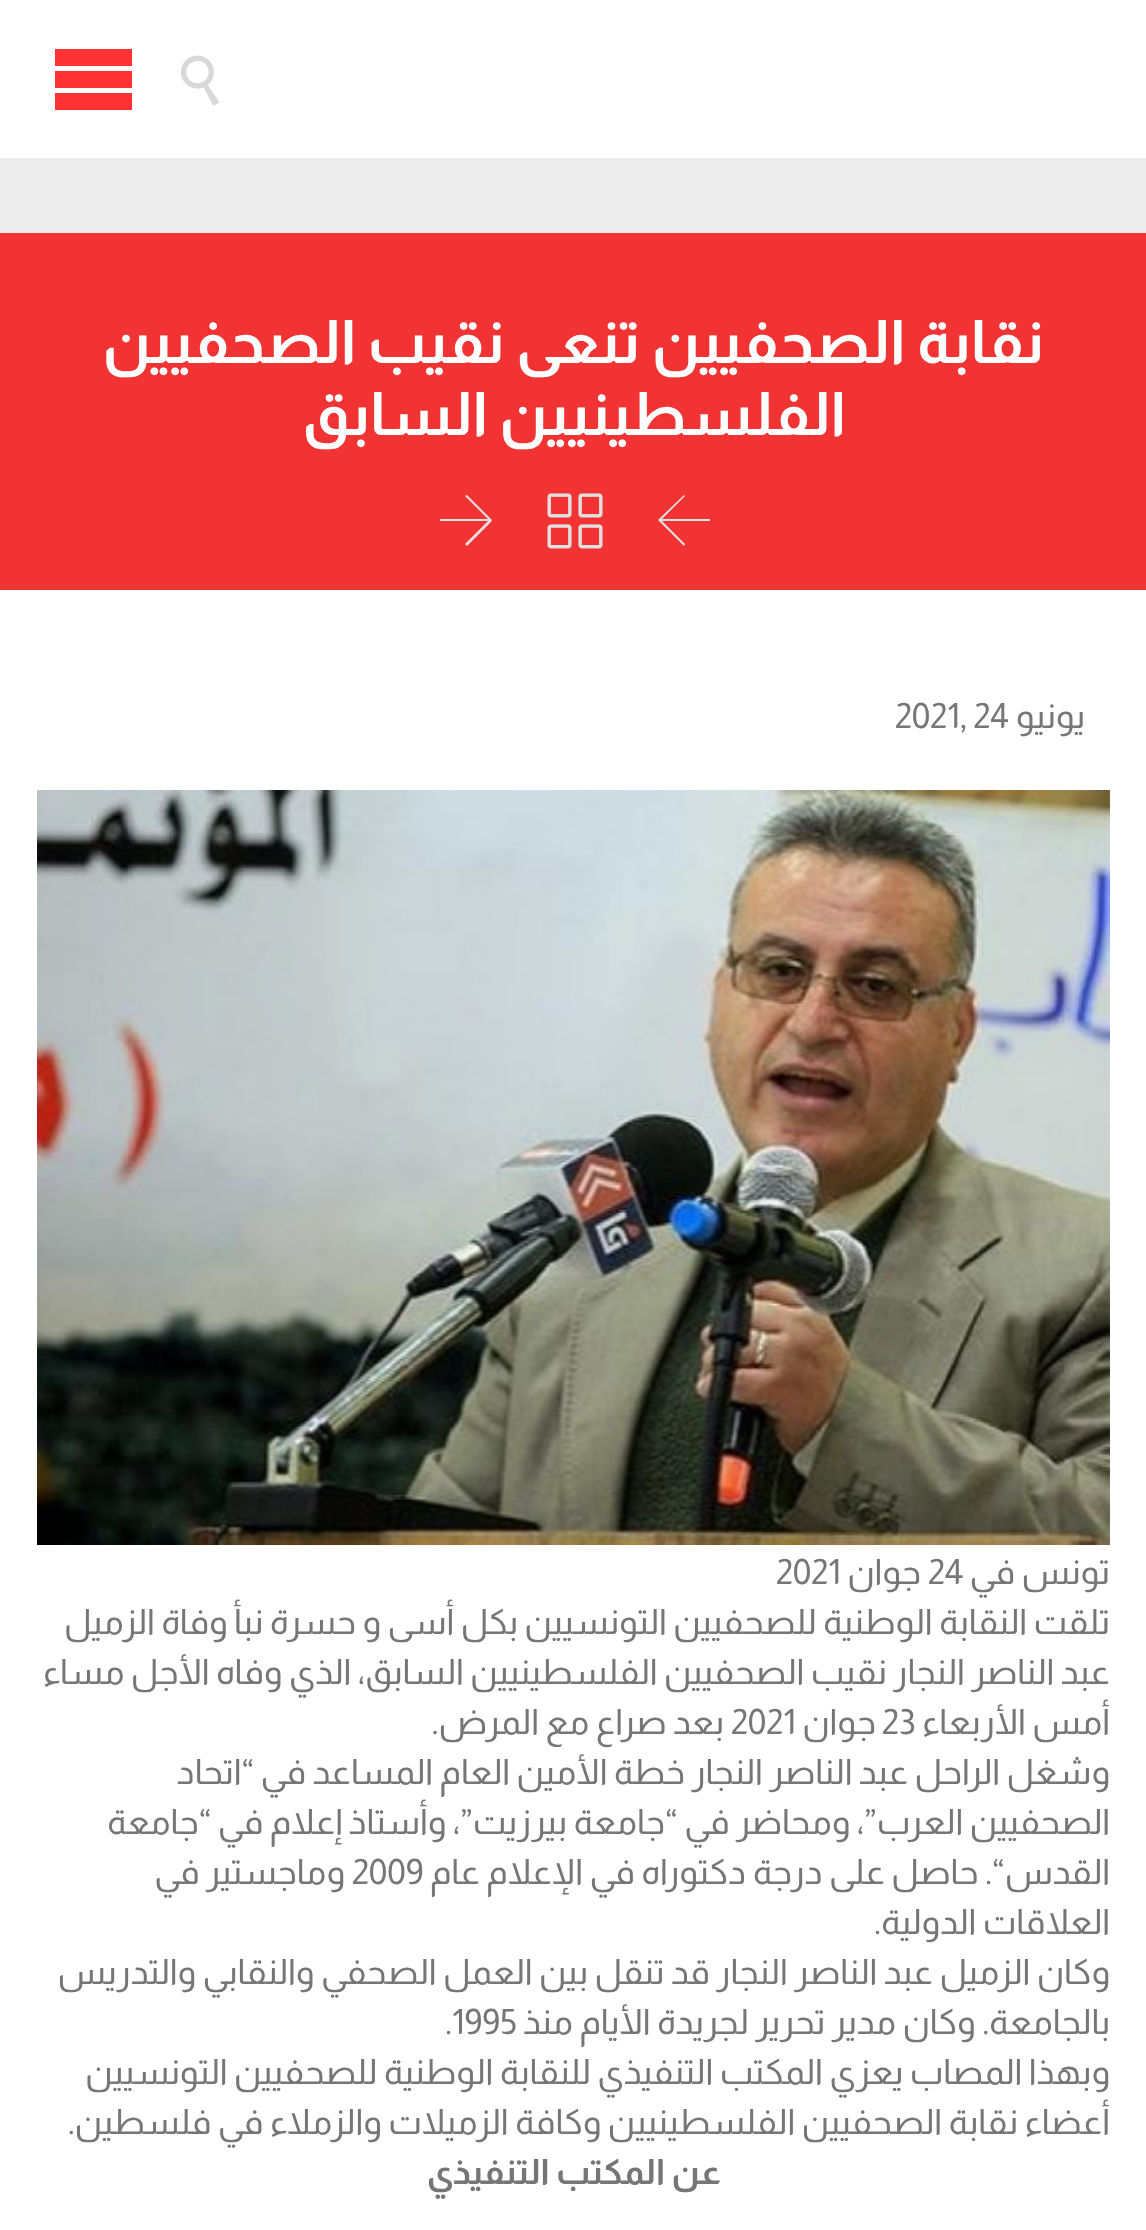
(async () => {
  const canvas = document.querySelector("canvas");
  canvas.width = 1146;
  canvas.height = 2230;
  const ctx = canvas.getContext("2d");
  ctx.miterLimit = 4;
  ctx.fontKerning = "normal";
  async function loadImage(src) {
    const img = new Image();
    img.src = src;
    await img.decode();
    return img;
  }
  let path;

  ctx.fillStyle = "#ededed";
  ctx.fillRect(0, 0, 1146, 2230);
  ctx.fillStyle = "#ffffff";
  ctx.fillRect(0, 0, 1146, 158);
  ctx.fillStyle = "#ff3333";
  path = new Path2D("M55 49H132V66H55ZM55 71H132V88H55ZM55 93H132V110H55Z");
  ctx.fill(path);
  ctx.drawImage(await loadImage("img/1.png"), 181, 55, 38, 51);
  ctx.fillStyle = "#f23333";
  ctx.fillRect(0, 233, 1146, 357);
  ctx.fillStyle = "#e0e0e0";
  path = new Path2D("M659 519L684 495L685 496L662 519H710V521H662L685 544L684 546L658 520Z");
  ctx.fill(path);
  ctx.drawImage(await loadImage("img/2.png"), 547, 493, 56, 56);
  path = new Path2D("M491 522L467 546L465 544L488 521H440V519H488L465 496L467 495L492 520Z");
  ctx.fill(path);
  ctx.fillStyle = "#ffffff";
  ctx.fillRect(0, 590, 1146, 1640);
  ctx.drawImage(await loadImage("img/3.png"), 37, 790, 1073, 755);
  ctx.direction = "rtl";
  ctx.font = "bold 60px Almarai";
  ctx.fillText("نقابة الصحفيين تنعى نقيب الصحفيين", 1044, 363);
  ctx.fillText("الفلسطينيين السابق", 846, 435);
  ctx.font = "35px Almarai";
  ctx.fillStyle = "#767676";
  ctx.fillText("يونيو", 1085, 728);
  ctx.direction = "ltr";
  ctx.fillText("2021, 24", 895, 728);
  ctx.direction = "rtl";
  ctx.fillText("تونس في", 1110, 1584);
  ctx.direction = "ltr";
  ctx.fillText("24", 928, 1584);
  ctx.direction = "rtl";
  ctx.fillText("جوان", 921, 1584);
  ctx.direction = "ltr";
  ctx.fillText("2021", 776, 1584);
  ctx.direction = "rtl";
  for (const [text, x, y] of [
    ["تلقت النقابة الوطنية للصحفيين التونسيين بكل أسى و حسرة نبأ وفاة الزميل", 1110, 1634],
    ["عبد الناصر النجار نقيب الصحفيين الفلسطينيين السابق، الذي وفاه الأجل مساء", 1110, 1684],
    ["أمس الأربعاء", 1110, 1734],
  ]) {
    ctx.fillText(text, x, y);
  }
  ctx.direction = "ltr";
  ctx.fillText("23", 882, 1734);
  ctx.direction = "rtl";
  ctx.fillText("جوان", 876, 1734);
  ctx.direction = "ltr";
  ctx.fillText("2021", 731, 1734);
  ctx.direction = "rtl";
  for (const [text, x, y] of [
    ["بعد صراع مع المرض.", 724, 1734],
    ["وشغل الراحل عبد الناصر النجار خطة الأمين العام المساعد في “اتحاد", 1110, 1784],
    ["الصحفيين العرب”، ومحاضر في “جامعة بيرزيت”، وأستاذ إعلام في “جامعة", 1110, 1834],
    ["القدس“. حاصل على درجة دكتوراه في الإعلام عام", 1110, 1884],
  ]) {
    ctx.fillText(text, x, y);
  }
  ctx.direction = "ltr";
  ctx.fillText("2009", 352, 1884);
  ctx.direction = "rtl";
  for (const [text, x, y] of [
    ["وماجستير في", 345, 1884],
    ["العلاقات الدولية.", 1110, 1934],
    ["وكان الزميل عبد الناصر النجار قد تنقل بين العمل الصحفي والنقابي والتدريس", 1110, 1984],
    ["بالجامعة. وكان مدير تحرير لجريدة الأيام منذ", 1110, 2034],
  ]) {
    ctx.fillText(text, x, y);
  }
  ctx.direction = "ltr";
  ctx.fillText(".1995", 445, 2034);
  ctx.direction = "rtl";
  ctx.fillText("وبهذا المصاب يعزي المكتب التنفيذي للنقابة الوطنية للصحفيين التونسيين", 1110, 2084);
  ctx.fillText("أعضاء نقابة الصحفيين الفلسطينيين وكافة الزميلات والزملاء في فلسطين.", 1110, 2134);
  ctx.font = "bold 35px Almarai";
  ctx.fillText("عن المكتب التنفيذي", 721, 2184);
})();
